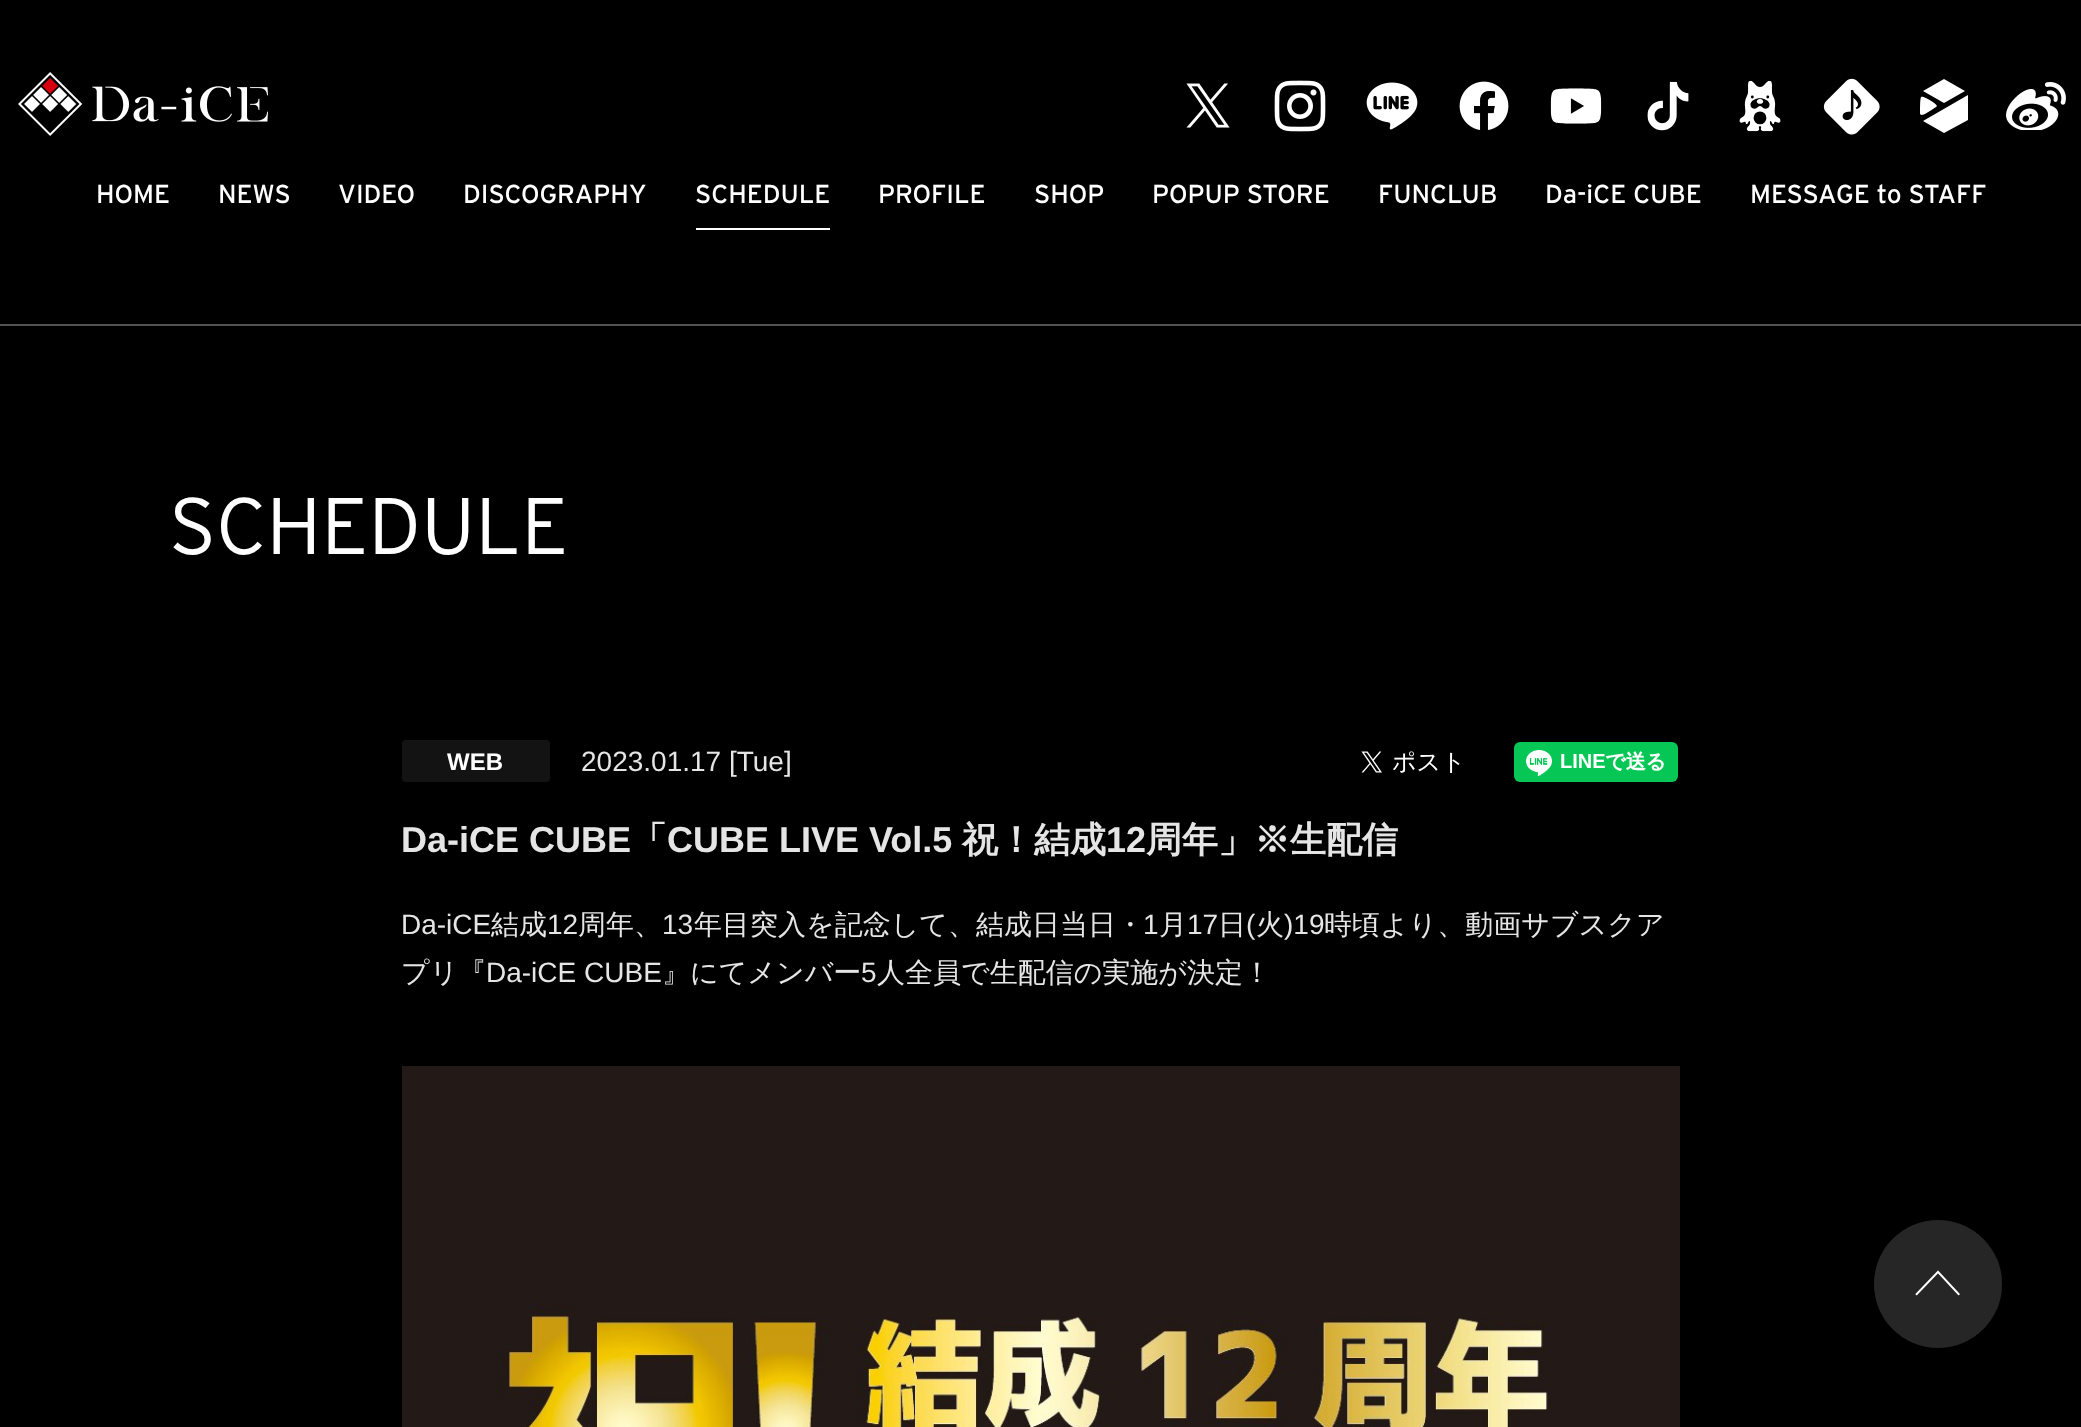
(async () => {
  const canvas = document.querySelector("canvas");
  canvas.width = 2081;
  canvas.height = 1427;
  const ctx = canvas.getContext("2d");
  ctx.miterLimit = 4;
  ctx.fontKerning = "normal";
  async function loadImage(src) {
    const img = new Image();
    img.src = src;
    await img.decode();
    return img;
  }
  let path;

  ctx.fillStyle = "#000000";
  ctx.fillRect(0, 0, 2081, 1427);
  ctx.drawImage(await loadImage("img/1.png"), 18, 72, 250, 64);
  ctx.drawImage(await loadImage("img/2.png"), 1186, 83, 44, 45);
  ctx.drawImage(await loadImage("img/3.png"), 1274, 80, 52, 52);
  ctx.drawImage(await loadImage("img/4.png"), 1366, 82, 52, 48);
  ctx.drawImage(await loadImage("img/5.png"), 1459, 81, 50, 49);
  ctx.drawImage(await loadImage("img/6.png"), 1550, 88, 52, 36);
  ctx.drawImage(await loadImage("img/7.png"), 1647, 81, 42, 50);
  ctx.drawImage(await loadImage("img/8.png"), 1739, 80, 42, 52);
  ctx.drawImage(await loadImage("img/9.png"), 1823, 78, 57, 57);
  ctx.fillStyle = "#ffffff";
  path = new Path2D("M1965 91L1944 103L1923 91L1944 79ZM1968 120V95L1923 121L1944 133ZM1920 113C1920 118 1928 112 1930 111L1936 107L1937 106C1937 104 1923 95 1921 97C1920 98 1920 111 1920 113Z");
  ctx.fill(path);
  ctx.drawImage(await loadImage("img/10.png"), 2006, 82, 60, 48);
  ctx.fillRect(696, 228, 134, 2);
  ctx.fillStyle = "#525252";
  ctx.fillRect(0, 324, 2081, 2);
  ctx.fillStyle = "#131313";
  ctx.beginPath();
  ctx.roundRect(403, 741, 146, 40, 3);
  ctx.fill();
  ctx.strokeStyle = "#131313";
  ctx.lineWidth = 2;
  ctx.stroke();
  ctx.drawImage(await loadImage("img/11.png"), 1361, 751, 99, 22);
  ctx.drawImage(await loadImage("img/12.png"), 1514, 742, 164, 40);
  ctx.drawImage(await loadImage("img/13.png"), 402, 1066, 1278, 361);
  ctx.drawImage(await loadImage("img/14.png"), 1874, 1220, 128, 128);
  ctx.font = "26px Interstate";
  ctx.fillStyle = "#ffffff";
  for (const [text, x, y] of [
    ["HOME", 96, 203],
    ["NEWS", 218, 203],
    ["VIDEO", 338, 203],
    ["DISCOGRAPHY", 463, 203],
    ["SCHEDULE", 695, 203],
    ["PROFILE", 878, 203],
    ["SHOP", 1034, 203],
    ["POPUP STORE", 1152, 203],
    ["FUNCLUB", 1378, 203],
    ["Da-iCE CUBE", 1545, 203],
    ["MESSAGE to STAFF", 1750, 203],
  ]) {
    ctx.fillText(text, x, y);
  }
  ctx.font = "300 80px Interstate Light";
  ctx.fillText("SCHEDULE", 169, 554);
  ctx.font = "bold 24px Liberation Sans";
  ctx.fillText("WEB", 447, 770);
  ctx.font = "28px Liberation Sans";
  ctx.fillStyle = "#e5e5e5";
  ctx.fillText("2023.01.17 [Tue]", 581, 771);
  ctx.font = "bold 36px Liberation Sans";
  ctx.fillText("Da-iCE CUBE", 401, 852);
  ctx.font = "bold 36px WenQuanYi Zen Hei";
  ctx.fillText("「", 631, 852);
  ctx.font = "bold 36px Liberation Sans";
  ctx.fillText("CUBE LIVE Vol.5", 667, 852);
  ctx.font = "bold 36px WenQuanYi Zen Hei";
  ctx.fillText("祝！結成", 962, 852);
  ctx.font = "bold 36px Liberation Sans";
  ctx.fillText("12", 1106, 852);
  ctx.font = "bold 36px WenQuanYi Zen Hei";
  ctx.fillText("周年」※生配信", 1146, 852);
  ctx.font = "28px Liberation Sans";
  ctx.fillText("Da-iCE", 401, 934);
  ctx.font = "500 28px WenQuanYi Zen Hei";
  ctx.fillText("結成", 491, 934);
  ctx.font = "28px Liberation Sans";
  ctx.fillText("12", 547, 934);
  ctx.font = "500 28px WenQuanYi Zen Hei";
  ctx.fillText("周年、", 578, 934);
  ctx.font = "28px Liberation Sans";
  ctx.fillText("13", 662, 934);
  ctx.font = "500 28px WenQuanYi Zen Hei";
  ctx.fillText("年目突入を記念して、結成日当日・", 694, 934);
  ctx.font = "28px Liberation Sans";
  ctx.fillText("1", 1143, 934);
  ctx.font = "500 28px WenQuanYi Zen Hei";
  ctx.fillText("月", 1159, 934);
  ctx.font = "28px Liberation Sans";
  ctx.fillText("17", 1187, 934);
  ctx.font = "500 28px WenQuanYi Zen Hei";
  ctx.fillText("日", 1218, 934);
  ctx.font = "28px Liberation Sans";
  ctx.fillText("(", 1246, 934);
  ctx.font = "500 28px WenQuanYi Zen Hei";
  ctx.fillText("火", 1256, 934);
  ctx.font = "28px Liberation Sans";
  ctx.fillText(")19", 1284, 934);
  ctx.font = "500 28px WenQuanYi Zen Hei";
  ctx.fillText("時頃より、動画サブスクア", 1324, 934);
  ctx.fillText("プリ『", 401, 982);
  ctx.font = "28px Liberation Sans";
  ctx.fillText("Da-iCE CUBE", 486, 982);
  ctx.font = "500 28px WenQuanYi Zen Hei";
  ctx.fillText("』にてメンバー", 662, 982);
  ctx.font = "28px Liberation Sans";
  ctx.fillText("5", 861, 982);
  ctx.font = "500 28px WenQuanYi Zen Hei";
  ctx.fillText("人全員で生配信の実施が決定！", 877, 982);
})();
